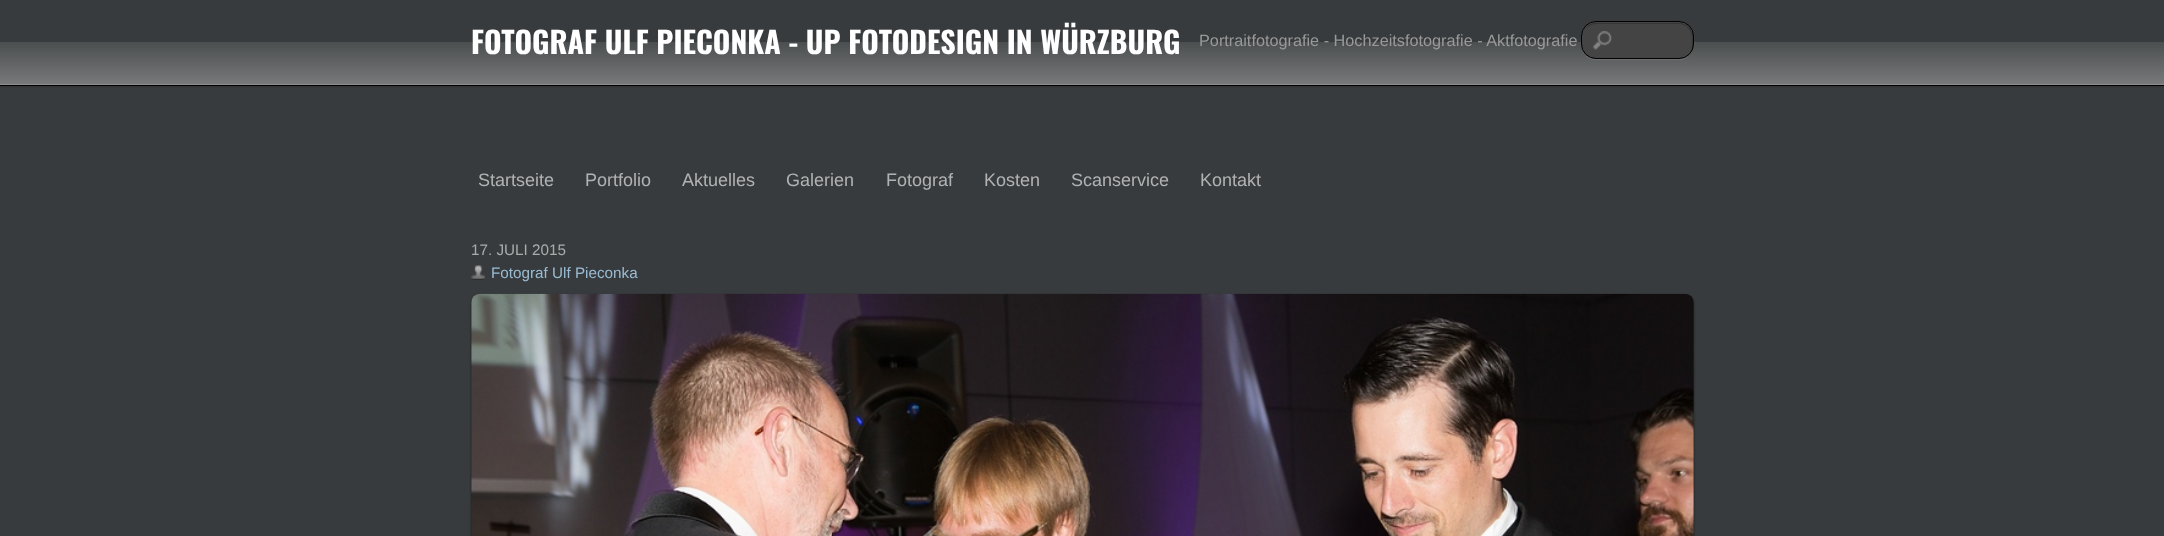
(async () => {
  const canvas = document.querySelector("canvas");
  canvas.width = 2164;
  canvas.height = 536;
  const ctx = canvas.getContext("2d");
  ctx.miterLimit = 4;
  ctx.fontKerning = "normal";
  async function loadImage(src) {
    const img = new Image();
    img.src = src;
    await img.decode();
    return img;
  }
  let gradient, path;

  ctx.fillStyle = "#383b3d";
  ctx.fillRect(0, 0, 2164, 536);
  ctx.fillStyle = "rgba(0, 0, 0, 0.3)";
  ctx.filter = "blur(1px)";
  ctx.beginPath();
  ctx.rect(0, 0, 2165, 86);
  ctx.fill();
  ctx.filter = "none";
  gradient = ctx.createLinearGradient(1083, 85, 1083, 0);
  gradient.addColorStop(0, "#787a7b");
  gradient.addColorStop(0.5, "#4c4f50");
  gradient.addColorStop(0.51, "#383b3d");
  ctx.fillStyle = gradient;
  ctx.fillRect(0, 0, 2164, 84);
  ctx.fillStyle = "#8b8d8e";
  ctx.fillRect(0, 84, 2164, 1);
  ctx.fillStyle = "#000000";
  ctx.fillRect(0, 85, 2164, 1);
  ctx.fillStyle = "rgba(255, 255, 255, 0.1)";
  path = new Path2D("M1581 35C1579 45 1582 57 1593 60H1682C1693 57 1696 45 1694 35C1695 45 1693 56 1682 58H1593C1582 56 1580 45 1581 35Z");
  ctx.fill(path);
  ctx.fillStyle = "#444444";
  ctx.beginPath();
  ctx.roundRect(1581, 21, 113, 38, 15);
  ctx.fill();
  ctx.drawImage(await loadImage("img/1.png"), 1592, 31, 20, 19);
  ctx.fillStyle = "#363636";
  path = new Path2D("M1596 24H1679C1686 24 1692 30 1692 38V45C1692 48 1691 51 1690 53C1692 51 1693 47 1693 44V37C1693 29 1687 23 1679 23H1597C1592 23 1588 25 1586 28C1589 26 1592 24 1596 24Z");
  ctx.fill(path);
  ctx.beginPath();
  ctx.roundRect(1581.5, 21.5, 112, 37, 14.5);
  ctx.strokeStyle = "#000000";
  ctx.stroke();
  ctx.drawImage(await loadImage("img/2.png"), 471, 265, 14, 15);
  ctx.fillStyle = "rgba(0, 0, 0, 0.4)";
  ctx.filter = "blur(1px)";
  ctx.beginPath();
  ctx.roundRect(471, 295, 1223, 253, 9);
  ctx.fill();
  ctx.filter = "none";
  ctx.drawImage(await loadImage("img/3.png"), 471, 293, 1223, 243);
  ctx.font = "bold 30px Oswald";
  ctx.fillStyle = "#ffffff";
  ctx.fillText("FOTOGRAF ULF PIECONKA - UP FOTODESIGN IN WÜRZBURG", 471, 54);
  ctx.font = "16.25px Liberation Sans";
  ctx.fillStyle = "#999999";
  ctx.fillText("Portraitfotografie - Hochzeitsfotografie - Aktfotografie", 1199, 46);
  ctx.font = "18px Liberation Sans";
  ctx.fillStyle = "#b1b2b3";
  for (const [text, x, y] of [
    ["Startseite", 478, 186],
    ["Portfolio", 585, 186],
    ["Aktuelles", 682, 186],
    ["Galerien", 786, 186],
    ["Fotograf", 886, 186],
    ["Kosten", 984, 186],
    ["Scanservice", 1071, 186],
    ["Kontakt", 1200, 186],
  ]) {
    ctx.fillText(text, x, y);
  }
  ctx.font = "15.25px Liberation Sans";
  ctx.fillStyle = "#a9abac";
  ctx.fillText("17. JULI 2015", 471, 255);
  ctx.fillStyle = "#99bcd3";
  ctx.fillText("Fotograf Ulf Pieconka", 491, 278);
})();
